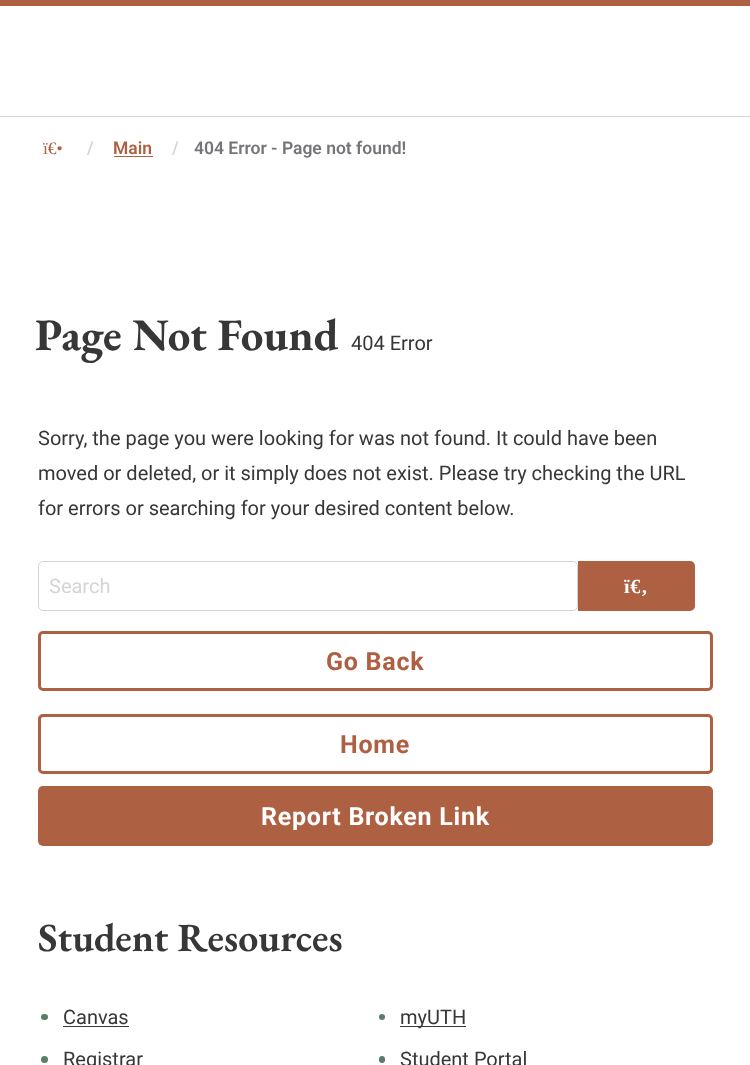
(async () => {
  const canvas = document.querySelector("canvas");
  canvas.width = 750;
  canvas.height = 1065;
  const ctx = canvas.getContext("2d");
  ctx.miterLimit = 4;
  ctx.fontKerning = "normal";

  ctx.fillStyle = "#ffffff";
  ctx.fillRect(0, 0, 750, 1065);
  for (const [x, y, w, h, color] of [
    [0, 0, 750, 6, "#ae6042"],
    [0, 116, 750, 1, "#d5d5d5"],
    [114, 156, 39, 1, "#ae6042"],
  ]) {
    ctx.fillStyle = color;
    ctx.fillRect(x, y, w, h);
  }
  ctx.beginPath();
  ctx.roundRect(38.5, 561.5, 539, 49, 4.5);
  ctx.strokeStyle = "#d5d5d5";
  ctx.stroke();
  ctx.beginPath();
  ctx.roundRect(578, 561, 117, 50, [0, 5, 5, 0]);
  ctx.fill();
  ctx.beginPath();
  ctx.roundRect(39.5, 632.5, 672, 57, 3.5);
  ctx.strokeStyle = "#ae6042";
  ctx.lineWidth = 3;
  ctx.stroke();
  ctx.beginPath();
  ctx.roundRect(39.5, 715.5, 672, 57, 3.5);
  ctx.stroke();
  ctx.beginPath();
  ctx.roundRect(38, 786, 675, 60, 5);
  ctx.fill();
  ctx.fillStyle = "#587e6a";
  ctx.beginPath();
  ctx.roundRect(41, 1014, 7, 6, 3);
  ctx.fill();
  ctx.fillStyle = "#383737";
  ctx.fillRect(63, 1026, 66, 1);
  ctx.fillStyle = "#587e6a";
  ctx.beginPath();
  ctx.arc(44.5, 1059.5, 3.5, 0, Math.PI * 2);
  ctx.fill();
  ctx.beginPath();
  ctx.arc(382, 1017, 3, 0, Math.PI * 2);
  ctx.fill();
  ctx.fillStyle = "#383737";
  ctx.fillRect(400, 1026, 66, 1);
  ctx.fillStyle = "#587e6a";
  ctx.beginPath();
  ctx.roundRect(379, 1056, 6, 7, 3);
  ctx.fill();
  ctx.font = "17.5px Liberation Serif";
  ctx.fillStyle = "#ae6042";
  ctx.fillText("ï€•", 43, 154);
  ctx.font = "600 17.5px Roboto";
  ctx.fillStyle = "#d5d5d5";
  ctx.fillText("/", 87, 154);
  ctx.fillStyle = "#ae6042";
  ctx.fillText("Main", 113, 154);
  ctx.fillStyle = "#d5d5d5";
  ctx.fillText("/", 172, 154);
  ctx.fillStyle = "#747578";
  ctx.fillText("404 Error - Page not found!", 194, 154);
  ctx.font = "bold 45px EB Garamond";
  ctx.fillStyle = "#383737";
  ctx.fillText("Page Not Found", 35, 350);
  ctx.font = "20px Roboto";
  for (const [text, x, y] of [
    ["404 Error", 351, 350],
    ["Sorry, the page you were looking for was not found. It could have been", 38, 445],
    ["moved or deleted, or it simply does not exist. Please try checking the URL", 38, 480],
    ["for errors or searching for your desired content below.", 38, 515],
  ]) {
    ctx.fillText(text, x, y);
  }
  ctx.fillStyle = "#d5d5d5";
  ctx.fillText("Search", 49, 593);
  ctx.letterSpacing = "0.75px";
  ctx.font = "bold 20px Liberation Serif";
  ctx.fillStyle = "#ffffff";
  ctx.fillText("ï€‚", 624, 593);
  ctx.font = "bold 25px Roboto";
  ctx.fillStyle = "#ae6042";
  ctx.fillText("Go Back", 326, 670);
  ctx.fillText("Home", 340, 753);
  ctx.fillStyle = "#ffffff";
  ctx.fillText("Report Broken Link", 261, 825);
  ctx.letterSpacing = "0px";
  ctx.font = "600 40px EB Garamond";
  ctx.fillStyle = "#383737";
  ctx.fillText("Student Resources", 38, 951);
  ctx.font = "20px Roboto";
  for (const [text, x, y] of [
    ["Canvas", 63, 1024],
    ["Registrar", 63, 1066],
    ["myUTH", 400, 1024],
    ["Student Portal", 400, 1066],
  ]) {
    ctx.fillText(text, x, y);
  }
})();
